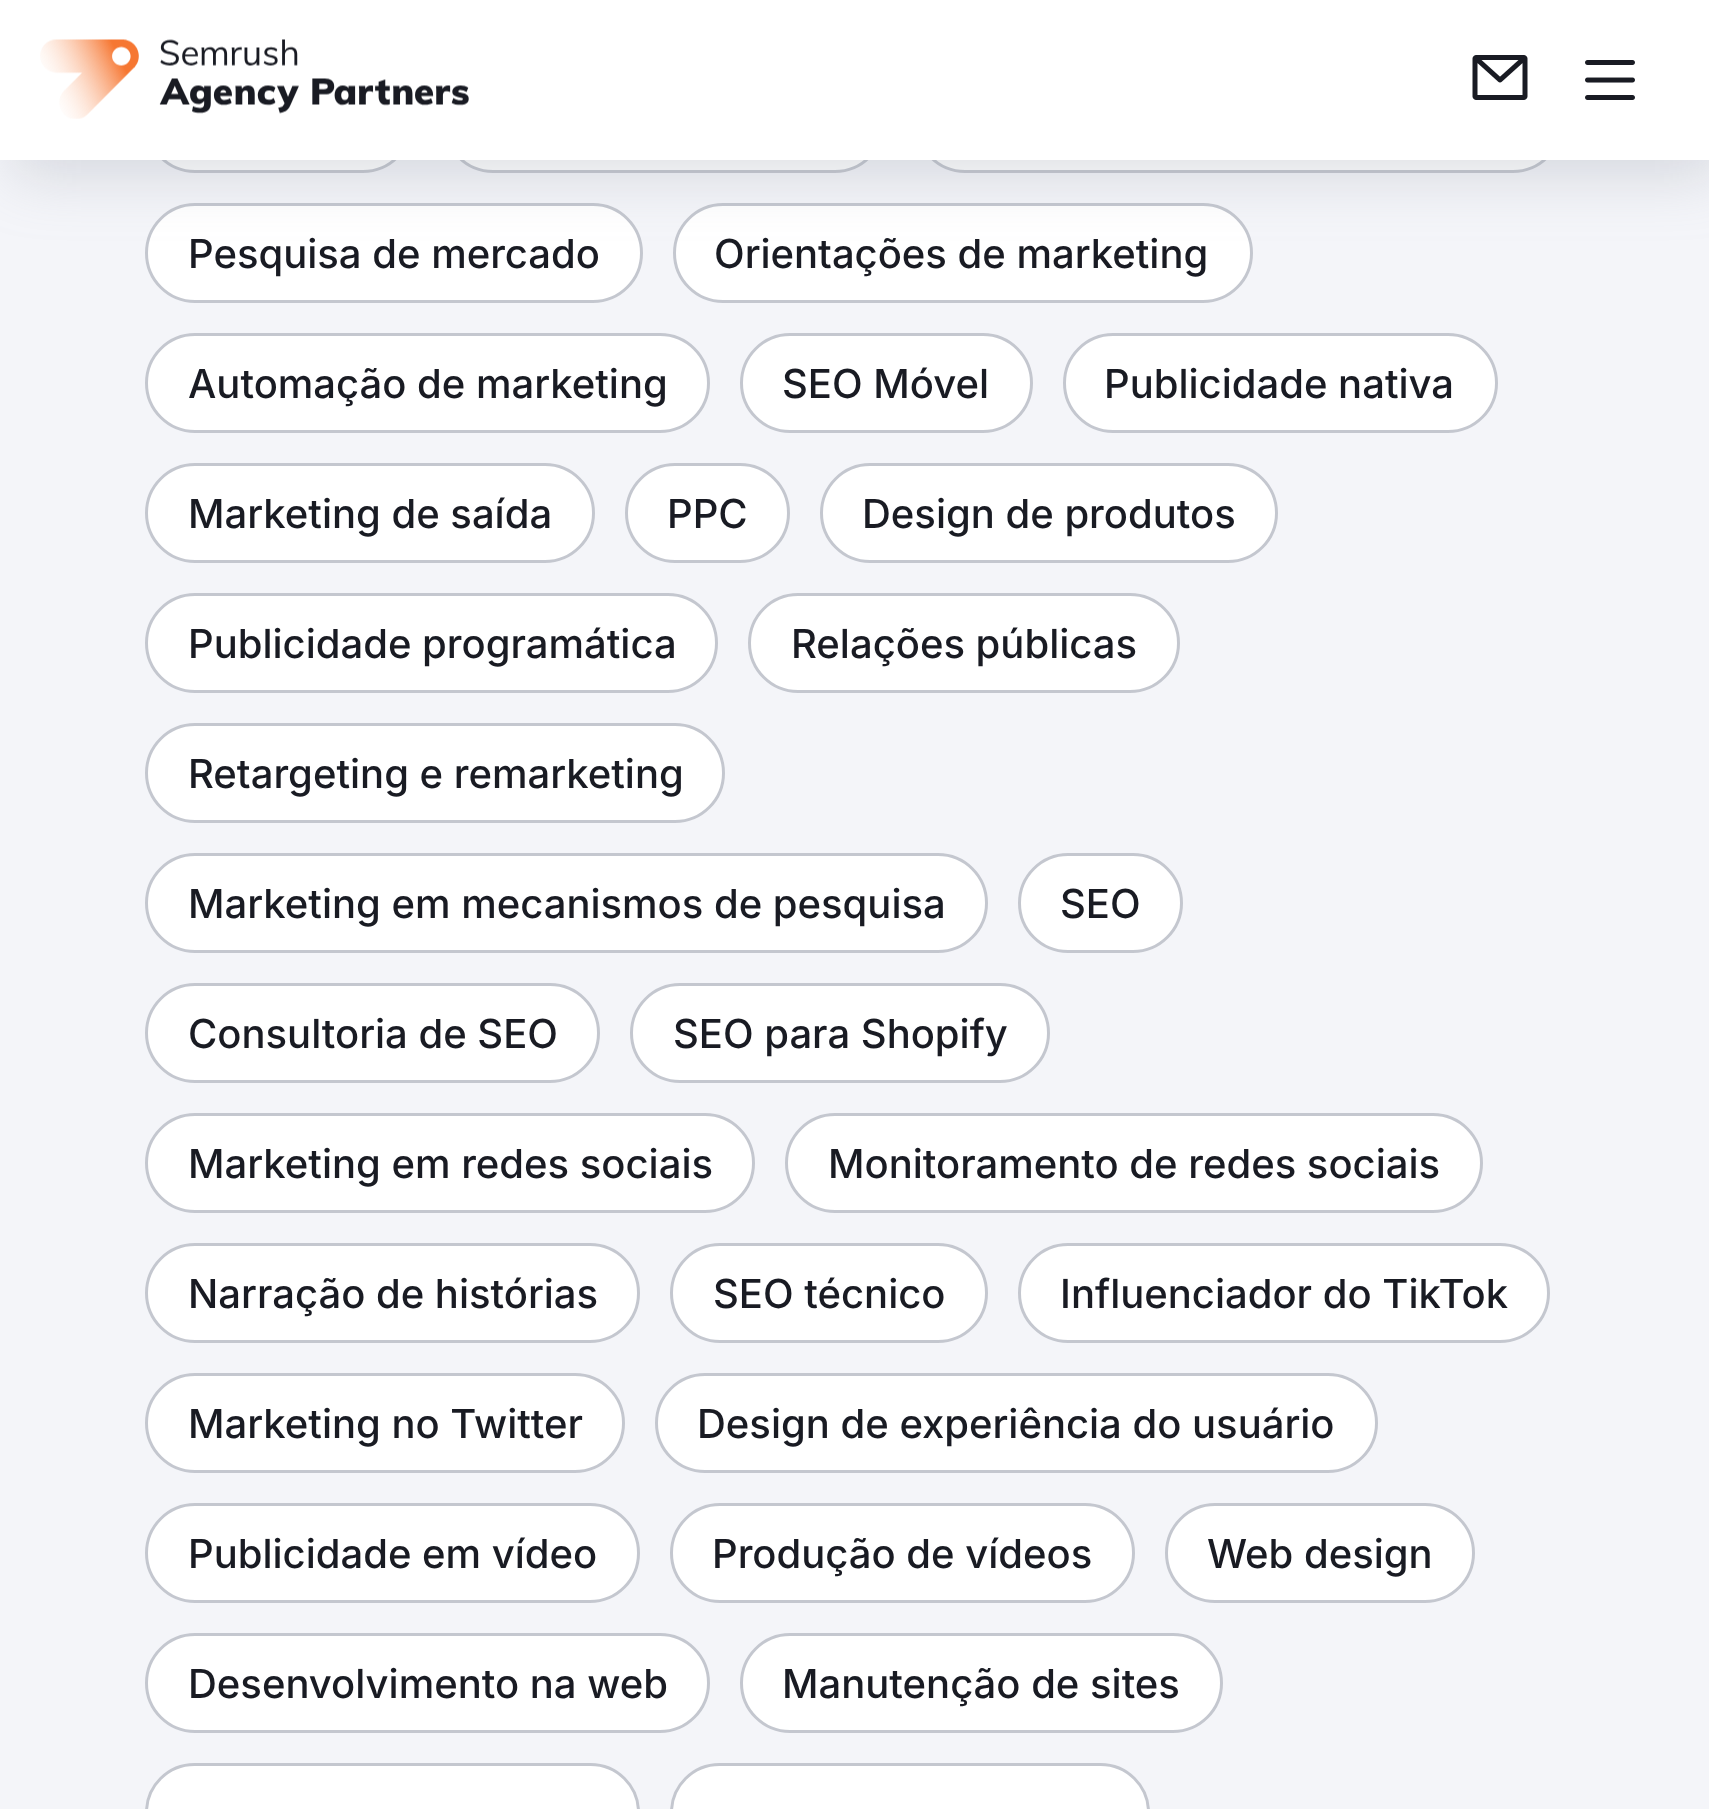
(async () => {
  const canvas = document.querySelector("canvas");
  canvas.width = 1709;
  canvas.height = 1809;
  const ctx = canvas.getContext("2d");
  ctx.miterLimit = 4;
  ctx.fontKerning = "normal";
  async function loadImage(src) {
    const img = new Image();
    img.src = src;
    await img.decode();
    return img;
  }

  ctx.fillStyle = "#f4f5f9";
  ctx.fillRect(0, 0, 1709, 1809);
  ctx.fillStyle = "#ffffff";
  ctx.beginPath();
  ctx.roundRect(146.5, 74.5, 265, 97, 48.5);
  ctx.fill();
  ctx.strokeStyle = "#c4c7cf";
  ctx.lineWidth = 3;
  ctx.stroke();
  ctx.beginPath();
  ctx.roundRect(444.5, 74.5, 439, 97, 48.5);
  ctx.fill();
  ctx.stroke();
  ctx.beginPath();
  ctx.roundRect(916.5, 74.5, 645, 97, 48.5);
  ctx.fill();
  ctx.stroke();
  ctx.beginPath();
  ctx.roundRect(146.5, 204.5, 495, 97, 48.5);
  ctx.fill();
  ctx.stroke();
  ctx.beginPath();
  ctx.roundRect(674.5, 204.5, 577, 97, 48.5);
  ctx.fill();
  ctx.stroke();
  ctx.fillStyle = "rgba(137, 141, 154, 0.3)";
  ctx.filter = "blur(31px)";
  ctx.beginPath();
  ctx.rect(13, 13, 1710, 160);
  ctx.fill();
  ctx.filter = "none";
  ctx.fillStyle = "#ffffff";
  ctx.fillRect(0, 0, 1709, 160);
  ctx.drawImage(await loadImage("img/1.png"), 40, 39, 429, 80);
  ctx.drawImage(await loadImage("img/2.png"), 1472, 55, 56, 45);
  ctx.drawImage(await loadImage("img/3.png"), 1585, 60, 50, 40);
  ctx.beginPath();
  ctx.roundRect(146.5, 334.5, 562, 97, 48.5);
  ctx.fill();
  ctx.stroke();
  ctx.beginPath();
  ctx.roundRect(741.5, 334.5, 290, 97, 48.5);
  ctx.fill();
  ctx.stroke();
  ctx.beginPath();
  ctx.roundRect(1064.5, 334.5, 432, 97, 48.5);
  ctx.fill();
  ctx.stroke();
  ctx.beginPath();
  ctx.roundRect(146.5, 464.5, 447, 97, 48.5);
  ctx.fill();
  ctx.stroke();
  ctx.beginPath();
  ctx.roundRect(626.5, 464.5, 162, 97, 48.5);
  ctx.fill();
  ctx.stroke();
  ctx.beginPath();
  ctx.roundRect(821.5, 464.5, 455, 97, 48.5);
  ctx.fill();
  ctx.stroke();
  ctx.beginPath();
  ctx.roundRect(146.5, 594.5, 570, 97, 48.5);
  ctx.fill();
  ctx.stroke();
  ctx.beginPath();
  ctx.roundRect(749.5, 594.5, 429, 97, 48.5);
  ctx.fill();
  ctx.stroke();
  ctx.beginPath();
  ctx.roundRect(146.5, 724.5, 577, 97, 48.5);
  ctx.fill();
  ctx.stroke();
  ctx.beginPath();
  ctx.roundRect(146.5, 854.5, 840, 97, 48.5);
  ctx.fill();
  ctx.stroke();
  ctx.beginPath();
  ctx.roundRect(1019.5, 854.5, 162, 97, 48.5);
  ctx.fill();
  ctx.stroke();
  ctx.beginPath();
  ctx.roundRect(146.5, 984.5, 452, 97, 48.5);
  ctx.fill();
  ctx.stroke();
  ctx.beginPath();
  ctx.roundRect(631.5, 984.5, 417, 97, 48.5);
  ctx.fill();
  ctx.stroke();
  ctx.beginPath();
  ctx.roundRect(146.5, 1114.5, 607, 97, 48.5);
  ctx.fill();
  ctx.stroke();
  ctx.beginPath();
  ctx.roundRect(786.5, 1114.5, 695, 97, 48.5);
  ctx.fill();
  ctx.stroke();
  ctx.beginPath();
  ctx.roundRect(146.5, 1244.5, 492, 97, 48.5);
  ctx.fill();
  ctx.stroke();
  ctx.beginPath();
  ctx.roundRect(671.5, 1244.5, 315, 97, 48.5);
  ctx.fill();
  ctx.stroke();
  ctx.beginPath();
  ctx.roundRect(1019.5, 1244.5, 529, 97, 48.5);
  ctx.fill();
  ctx.stroke();
  ctx.beginPath();
  ctx.roundRect(146.5, 1374.5, 477, 97, 48.5);
  ctx.fill();
  ctx.stroke();
  ctx.beginPath();
  ctx.roundRect(656.5, 1374.5, 720, 97, 48.5);
  ctx.fill();
  ctx.stroke();
  ctx.beginPath();
  ctx.roundRect(146.5, 1504.5, 492, 97, 48.5);
  ctx.fill();
  ctx.stroke();
  ctx.beginPath();
  ctx.roundRect(671.5, 1504.5, 462, 97, 48.5);
  ctx.fill();
  ctx.stroke();
  ctx.beginPath();
  ctx.roundRect(1166.5, 1504.5, 307, 97, 48.5);
  ctx.fill();
  ctx.stroke();
  ctx.beginPath();
  ctx.roundRect(146.5, 1634.5, 562, 97, 48.5);
  ctx.fill();
  ctx.stroke();
  ctx.beginPath();
  ctx.roundRect(741.5, 1634.5, 480, 97, 48.5);
  ctx.fill();
  ctx.stroke();
  ctx.beginPath();
  ctx.roundRect(146.5, 1764.5, 492, 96, 48.5);
  ctx.fill();
  ctx.stroke();
  ctx.beginPath();
  ctx.roundRect(671.5, 1764.5, 477, 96, 48.5);
  ctx.fill();
  ctx.stroke();
  ctx.font = "500 40px Inter";
  ctx.fillStyle = "#191b23";
  for (const [text, x, y] of [
    ["Pesquisa de mercado", 188, 268],
    ["Orientações de marketing", 714, 268],
    ["Automação de marketing", 188, 398],
    ["SEO Móvel", 782, 398],
    ["Publicidade nativa", 1104, 398],
    ["Marketing de saída", 188, 528],
    ["PPC", 667, 528],
    ["Design de produtos", 862, 528],
    ["Publicidade programática", 188, 658],
    ["Relações públicas", 791, 658],
    ["Retargeting e remarketing", 188, 788],
    ["Marketing em mecanismos de pesquisa", 188, 918],
    ["SEO", 1060, 918],
    ["Consultoria de SEO", 188, 1048],
    ["SEO para Shopify", 673, 1048],
    ["Marketing em redes sociais", 188, 1178],
    ["Monitoramento de redes sociais", 828, 1178],
    ["Narração de histórias", 188, 1308],
    ["SEO técnico", 713, 1308],
    ["Influenciador do TikTok", 1060, 1308],
    ["Marketing no Twitter", 188, 1438],
    ["Design de experiência do usuário", 697, 1438],
    ["Publicidade em vídeo", 188, 1568],
    ["Produção de vídeos", 712, 1568],
    ["Web design", 1207, 1568],
    ["Desenvolvimento na web", 188, 1698],
    ["Manutenção de sites", 782, 1698],
  ]) {
    ctx.fillText(text, x, y);
  }
})();
